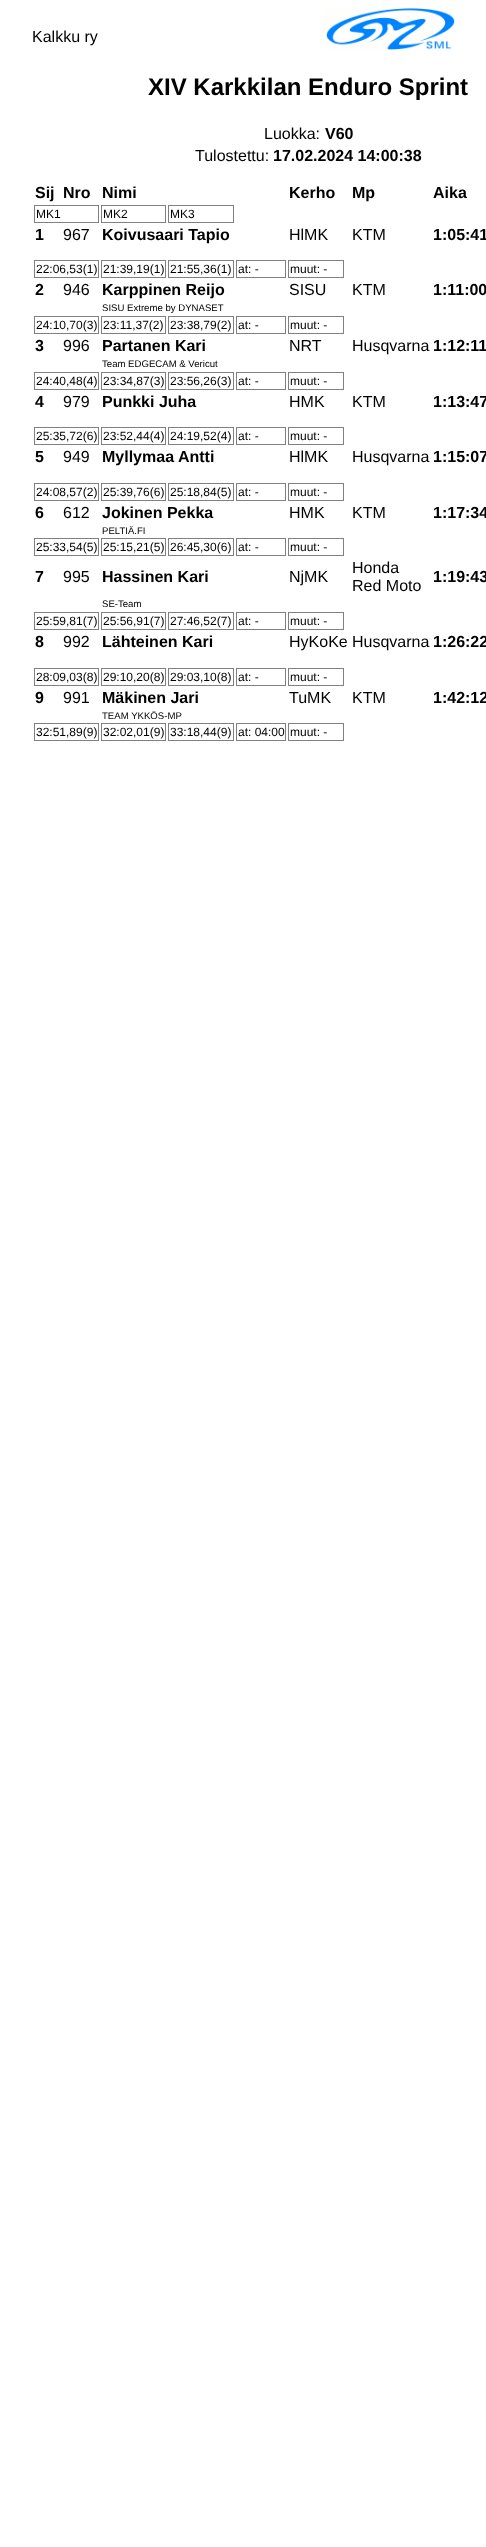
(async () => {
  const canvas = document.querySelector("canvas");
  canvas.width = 486;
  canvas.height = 2547;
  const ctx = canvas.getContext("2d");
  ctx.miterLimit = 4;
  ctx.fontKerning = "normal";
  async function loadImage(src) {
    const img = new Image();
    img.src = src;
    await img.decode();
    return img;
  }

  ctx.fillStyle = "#ffffff";
  ctx.fillRect(0, 0, 486, 2547);
  ctx.drawImage(await loadImage("img/1.png"), 326, 8, 129, 42);
  ctx.strokeStyle = "#808080";
  ctx.strokeRect(34.5, 205.5, 64, 17);
  ctx.strokeRect(101.5, 205.5, 64, 17);
  ctx.strokeRect(168.5, 205.5, 65, 17);
  ctx.strokeRect(34.5, 260.5, 64, 17);
  ctx.strokeRect(101.5, 260.5, 64, 17);
  ctx.strokeRect(168.5, 260.5, 65, 17);
  ctx.strokeRect(236.5, 260.5, 49, 17);
  ctx.strokeRect(288.5, 260.5, 55, 17);
  ctx.strokeRect(34.5, 316.5, 64, 17);
  ctx.strokeRect(101.5, 316.5, 64, 17);
  ctx.strokeRect(168.5, 316.5, 65, 17);
  ctx.strokeRect(236.5, 316.5, 49, 17);
  ctx.strokeRect(288.5, 316.5, 55, 17);
  ctx.strokeRect(34.5, 372.5, 64, 17);
  ctx.strokeRect(101.5, 372.5, 64, 17);
  ctx.strokeRect(168.5, 372.5, 65, 17);
  ctx.strokeRect(236.5, 372.5, 49, 17);
  ctx.strokeRect(288.5, 372.5, 55, 17);
  ctx.strokeRect(34.5, 427.5, 64, 17);
  ctx.strokeRect(101.5, 427.5, 64, 17);
  ctx.strokeRect(168.5, 427.5, 65, 17);
  ctx.strokeRect(236.5, 427.5, 49, 17);
  ctx.strokeRect(288.5, 427.5, 55, 17);
  ctx.strokeRect(34.5, 483.5, 64, 17);
  ctx.strokeRect(101.5, 483.5, 64, 17);
  ctx.strokeRect(168.5, 483.5, 65, 17);
  ctx.strokeRect(236.5, 483.5, 49, 17);
  ctx.strokeRect(288.5, 483.5, 55, 17);
  ctx.strokeRect(34.5, 538.5, 64, 17);
  ctx.strokeRect(101.5, 538.5, 64, 17);
  ctx.strokeRect(168.5, 538.5, 65, 17);
  ctx.strokeRect(236.5, 538.5, 49, 17);
  ctx.strokeRect(288.5, 538.5, 55, 17);
  ctx.strokeRect(34.5, 612.5, 64, 17);
  ctx.strokeRect(101.5, 612.5, 64, 17);
  ctx.strokeRect(168.5, 612.5, 65, 17);
  ctx.strokeRect(236.5, 612.5, 49, 17);
  ctx.strokeRect(288.5, 612.5, 55, 17);
  ctx.strokeRect(34.5, 668.5, 64, 17);
  ctx.strokeRect(101.5, 668.5, 64, 17);
  ctx.strokeRect(168.5, 668.5, 65, 17);
  ctx.strokeRect(236.5, 668.5, 49, 17);
  ctx.strokeRect(288.5, 668.5, 55, 17);
  ctx.strokeRect(34.5, 723.5, 64, 17);
  ctx.strokeRect(101.5, 723.5, 64, 17);
  ctx.strokeRect(168.5, 723.5, 65, 17);
  ctx.strokeRect(236.5, 723.5, 49, 17);
  ctx.strokeRect(288.5, 723.5, 55, 17);
  ctx.font = "16px Liberation Sans";
  ctx.fillStyle = "#000000";
  ctx.fillText("Kalkku ry", 32, 42);
  ctx.font = "bold 24px Liberation Sans";
  ctx.fillText("XIV Karkkilan Enduro Sprint", 148, 95);
  ctx.font = "16px Liberation Sans";
  ctx.fillText("Luokka:", 264, 139);
  ctx.font = "bold 16px Liberation Sans";
  ctx.fillText("V60", 325, 139);
  ctx.font = "16px Liberation Sans";
  ctx.fillText("Tulostettu:", 195, 161);
  ctx.font = "bold 16px Liberation Sans";
  for (const [text, x, y] of [
    ["17.02.2024 14:00:38", 273, 161],
    ["Sij", 35, 198],
    ["Nro", 63, 198],
    ["Nimi", 102, 198],
    ["Kerho", 289, 198],
    ["Mp", 352, 198],
    ["Aika", 433, 198],
  ]) {
    ctx.fillText(text, x, y);
  }
  ctx.font = "12px Liberation Sans";
  for (const [text, x, y] of [
    ["MK1", 36, 218],
    ["MK2", 103, 218],
    ["MK3", 170, 218],
  ]) {
    ctx.fillText(text, x, y);
  }
  ctx.font = "bold 16px Liberation Sans";
  ctx.fillText("1", 35, 240);
  ctx.font = "16px Liberation Sans";
  ctx.fillText("967", 63, 240);
  ctx.font = "bold 16px Liberation Sans";
  ctx.fillText("Koivusaari Tapio", 102, 240);
  ctx.font = "16px Liberation Sans";
  ctx.fillText("HlMK", 289, 240);
  ctx.fillText("KTM", 352, 240);
  ctx.font = "bold 16px Liberation Sans";
  ctx.fillText("1:05:41", 433, 240);
  ctx.font = "12px Liberation Sans";
  for (const [text, x, y] of [
    ["22:06,53(1)", 36, 273],
    ["21:39,19(1)", 103, 273],
    ["21:55,36(1)", 170, 273],
    ["at: -", 238, 273],
    ["muut: -", 290, 273],
  ]) {
    ctx.fillText(text, x, y);
  }
  ctx.font = "bold 16px Liberation Sans";
  ctx.fillText("2", 35, 295);
  ctx.font = "16px Liberation Sans";
  ctx.fillText("946", 63, 295);
  ctx.font = "bold 16px Liberation Sans";
  ctx.fillText("Karppinen Reijo", 102, 295);
  ctx.font = "16px Liberation Sans";
  ctx.fillText("SISU", 289, 295);
  ctx.fillText("KTM", 352, 295);
  ctx.font = "bold 16px Liberation Sans";
  ctx.fillText("1:11:00", 433, 295);
  ctx.font = "9.6px Liberation Sans";
  ctx.fillText("SISU Extreme by DYNASET", 102, 311);
  ctx.font = "12px Liberation Sans";
  for (const [text, x, y] of [
    ["24:10,70(3)", 36, 329],
    ["23:11,37(2)", 103, 329],
    ["23:38,79(2)", 170, 329],
    ["at: -", 238, 329],
    ["muut: -", 290, 329],
  ]) {
    ctx.fillText(text, x, y);
  }
  ctx.font = "bold 16px Liberation Sans";
  ctx.fillText("3", 35, 351);
  ctx.font = "16px Liberation Sans";
  ctx.fillText("996", 63, 351);
  ctx.font = "bold 16px Liberation Sans";
  ctx.fillText("Partanen Kari", 102, 351);
  ctx.font = "16px Liberation Sans";
  ctx.fillText("NRT", 289, 351);
  ctx.fillText("Husqvarna", 352, 351);
  ctx.font = "bold 16px Liberation Sans";
  ctx.fillText("1:12:11", 433, 351);
  ctx.font = "9.6px Liberation Sans";
  ctx.fillText("Team EDGECAM & Vericut", 102, 367);
  ctx.font = "12px Liberation Sans";
  for (const [text, x, y] of [
    ["24:40,48(4)", 36, 385],
    ["23:34,87(3)", 103, 385],
    ["23:56,26(3)", 170, 385],
    ["at: -", 238, 385],
    ["muut: -", 290, 385],
  ]) {
    ctx.fillText(text, x, y);
  }
  ctx.font = "bold 16px Liberation Sans";
  ctx.fillText("4", 35, 407);
  ctx.font = "16px Liberation Sans";
  ctx.fillText("979", 63, 407);
  ctx.font = "bold 16px Liberation Sans";
  ctx.fillText("Punkki Juha", 102, 407);
  ctx.font = "16px Liberation Sans";
  ctx.fillText("HMK", 289, 407);
  ctx.fillText("KTM", 352, 407);
  ctx.font = "bold 16px Liberation Sans";
  ctx.fillText("1:13:47", 433, 407);
  ctx.font = "12px Liberation Sans";
  for (const [text, x, y] of [
    ["25:35,72(6)", 36, 440],
    ["23:52,44(4)", 103, 440],
    ["24:19,52(4)", 170, 440],
    ["at: -", 238, 440],
    ["muut: -", 290, 440],
  ]) {
    ctx.fillText(text, x, y);
  }
  ctx.font = "bold 16px Liberation Sans";
  ctx.fillText("5", 35, 462);
  ctx.font = "16px Liberation Sans";
  ctx.fillText("949", 63, 462);
  ctx.font = "bold 16px Liberation Sans";
  ctx.fillText("Myllymaa Antti", 102, 462);
  ctx.font = "16px Liberation Sans";
  ctx.fillText("HlMK", 289, 462);
  ctx.fillText("Husqvarna", 352, 462);
  ctx.font = "bold 16px Liberation Sans";
  ctx.fillText("1:15:07", 433, 462);
  ctx.font = "12px Liberation Sans";
  for (const [text, x, y] of [
    ["24:08,57(2)", 36, 496],
    ["25:39,76(6)", 103, 496],
    ["25:18,84(5)", 170, 496],
    ["at: -", 238, 496],
    ["muut: -", 290, 496],
  ]) {
    ctx.fillText(text, x, y);
  }
  ctx.font = "bold 16px Liberation Sans";
  ctx.fillText("6", 35, 518);
  ctx.font = "16px Liberation Sans";
  ctx.fillText("612", 63, 518);
  ctx.font = "bold 16px Liberation Sans";
  ctx.fillText("Jokinen Pekka", 102, 518);
  ctx.font = "16px Liberation Sans";
  ctx.fillText("HMK", 289, 518);
  ctx.fillText("KTM", 352, 518);
  ctx.font = "bold 16px Liberation Sans";
  ctx.fillText("1:17:34", 433, 518);
  ctx.font = "9.6px Liberation Sans";
  ctx.fillText("PELTIÄ.FI", 102, 534);
  ctx.font = "12px Liberation Sans";
  for (const [text, x, y] of [
    ["25:33,54(5)", 36, 551],
    ["25:15,21(5)", 103, 551],
    ["26:45,30(6)", 170, 551],
    ["at: -", 238, 551],
    ["muut: -", 290, 551],
  ]) {
    ctx.fillText(text, x, y);
  }
  ctx.font = "bold 16px Liberation Sans";
  ctx.fillText("7", 35, 582);
  ctx.font = "16px Liberation Sans";
  ctx.fillText("995", 63, 582);
  ctx.font = "bold 16px Liberation Sans";
  ctx.fillText("Hassinen Kari", 102, 582);
  ctx.font = "16px Liberation Sans";
  for (const [text, x, y] of [
    ["NjMK", 289, 582],
    ["Honda", 352, 573],
    ["Red Moto", 352, 591],
  ]) {
    ctx.fillText(text, x, y);
  }
  ctx.font = "bold 16px Liberation Sans";
  ctx.fillText("1:19:43", 433, 582);
  ctx.font = "9.6px Liberation Sans";
  ctx.fillText("SE-Team", 102, 607);
  ctx.font = "12px Liberation Sans";
  for (const [text, x, y] of [
    ["25:59,81(7)", 36, 625],
    ["25:56,91(7)", 103, 625],
    ["27:46,52(7)", 170, 625],
    ["at: -", 238, 625],
    ["muut: -", 290, 625],
  ]) {
    ctx.fillText(text, x, y);
  }
  ctx.font = "bold 16px Liberation Sans";
  ctx.fillText("8", 35, 647);
  ctx.font = "16px Liberation Sans";
  ctx.fillText("992", 63, 647);
  ctx.font = "bold 16px Liberation Sans";
  ctx.fillText("Lähteinen Kari", 102, 647);
  ctx.font = "16px Liberation Sans";
  ctx.fillText("HyKoKe", 289, 647);
  ctx.fillText("Husqvarna", 352, 647);
  ctx.font = "bold 16px Liberation Sans";
  ctx.fillText("1:26:22", 433, 647);
  ctx.font = "12px Liberation Sans";
  for (const [text, x, y] of [
    ["28:09,03(8)", 36, 681],
    ["29:10,20(8)", 103, 681],
    ["29:03,10(8)", 170, 681],
    ["at: -", 238, 681],
    ["muut: -", 290, 681],
  ]) {
    ctx.fillText(text, x, y);
  }
  ctx.font = "bold 16px Liberation Sans";
  ctx.fillText("9", 35, 703);
  ctx.font = "16px Liberation Sans";
  ctx.fillText("991", 63, 703);
  ctx.font = "bold 16px Liberation Sans";
  ctx.fillText("Mäkinen Jari", 102, 703);
  ctx.font = "16px Liberation Sans";
  ctx.fillText("TuMK", 289, 703);
  ctx.fillText("KTM", 352, 703);
  ctx.font = "bold 16px Liberation Sans";
  ctx.fillText("1:42:12", 433, 703);
  ctx.font = "9.6px Liberation Sans";
  ctx.fillText("TEAM YKKÖS-MP", 102, 719);
  ctx.font = "12px Liberation Sans";
  for (const [text, x, y] of [
    ["32:51,89(9)", 36, 736],
    ["32:02,01(9)", 103, 736],
    ["33:18,44(9)", 170, 736],
    ["at: 04:00", 238, 736],
    ["muut: -", 290, 736],
  ]) {
    ctx.fillText(text, x, y);
  }
})();
